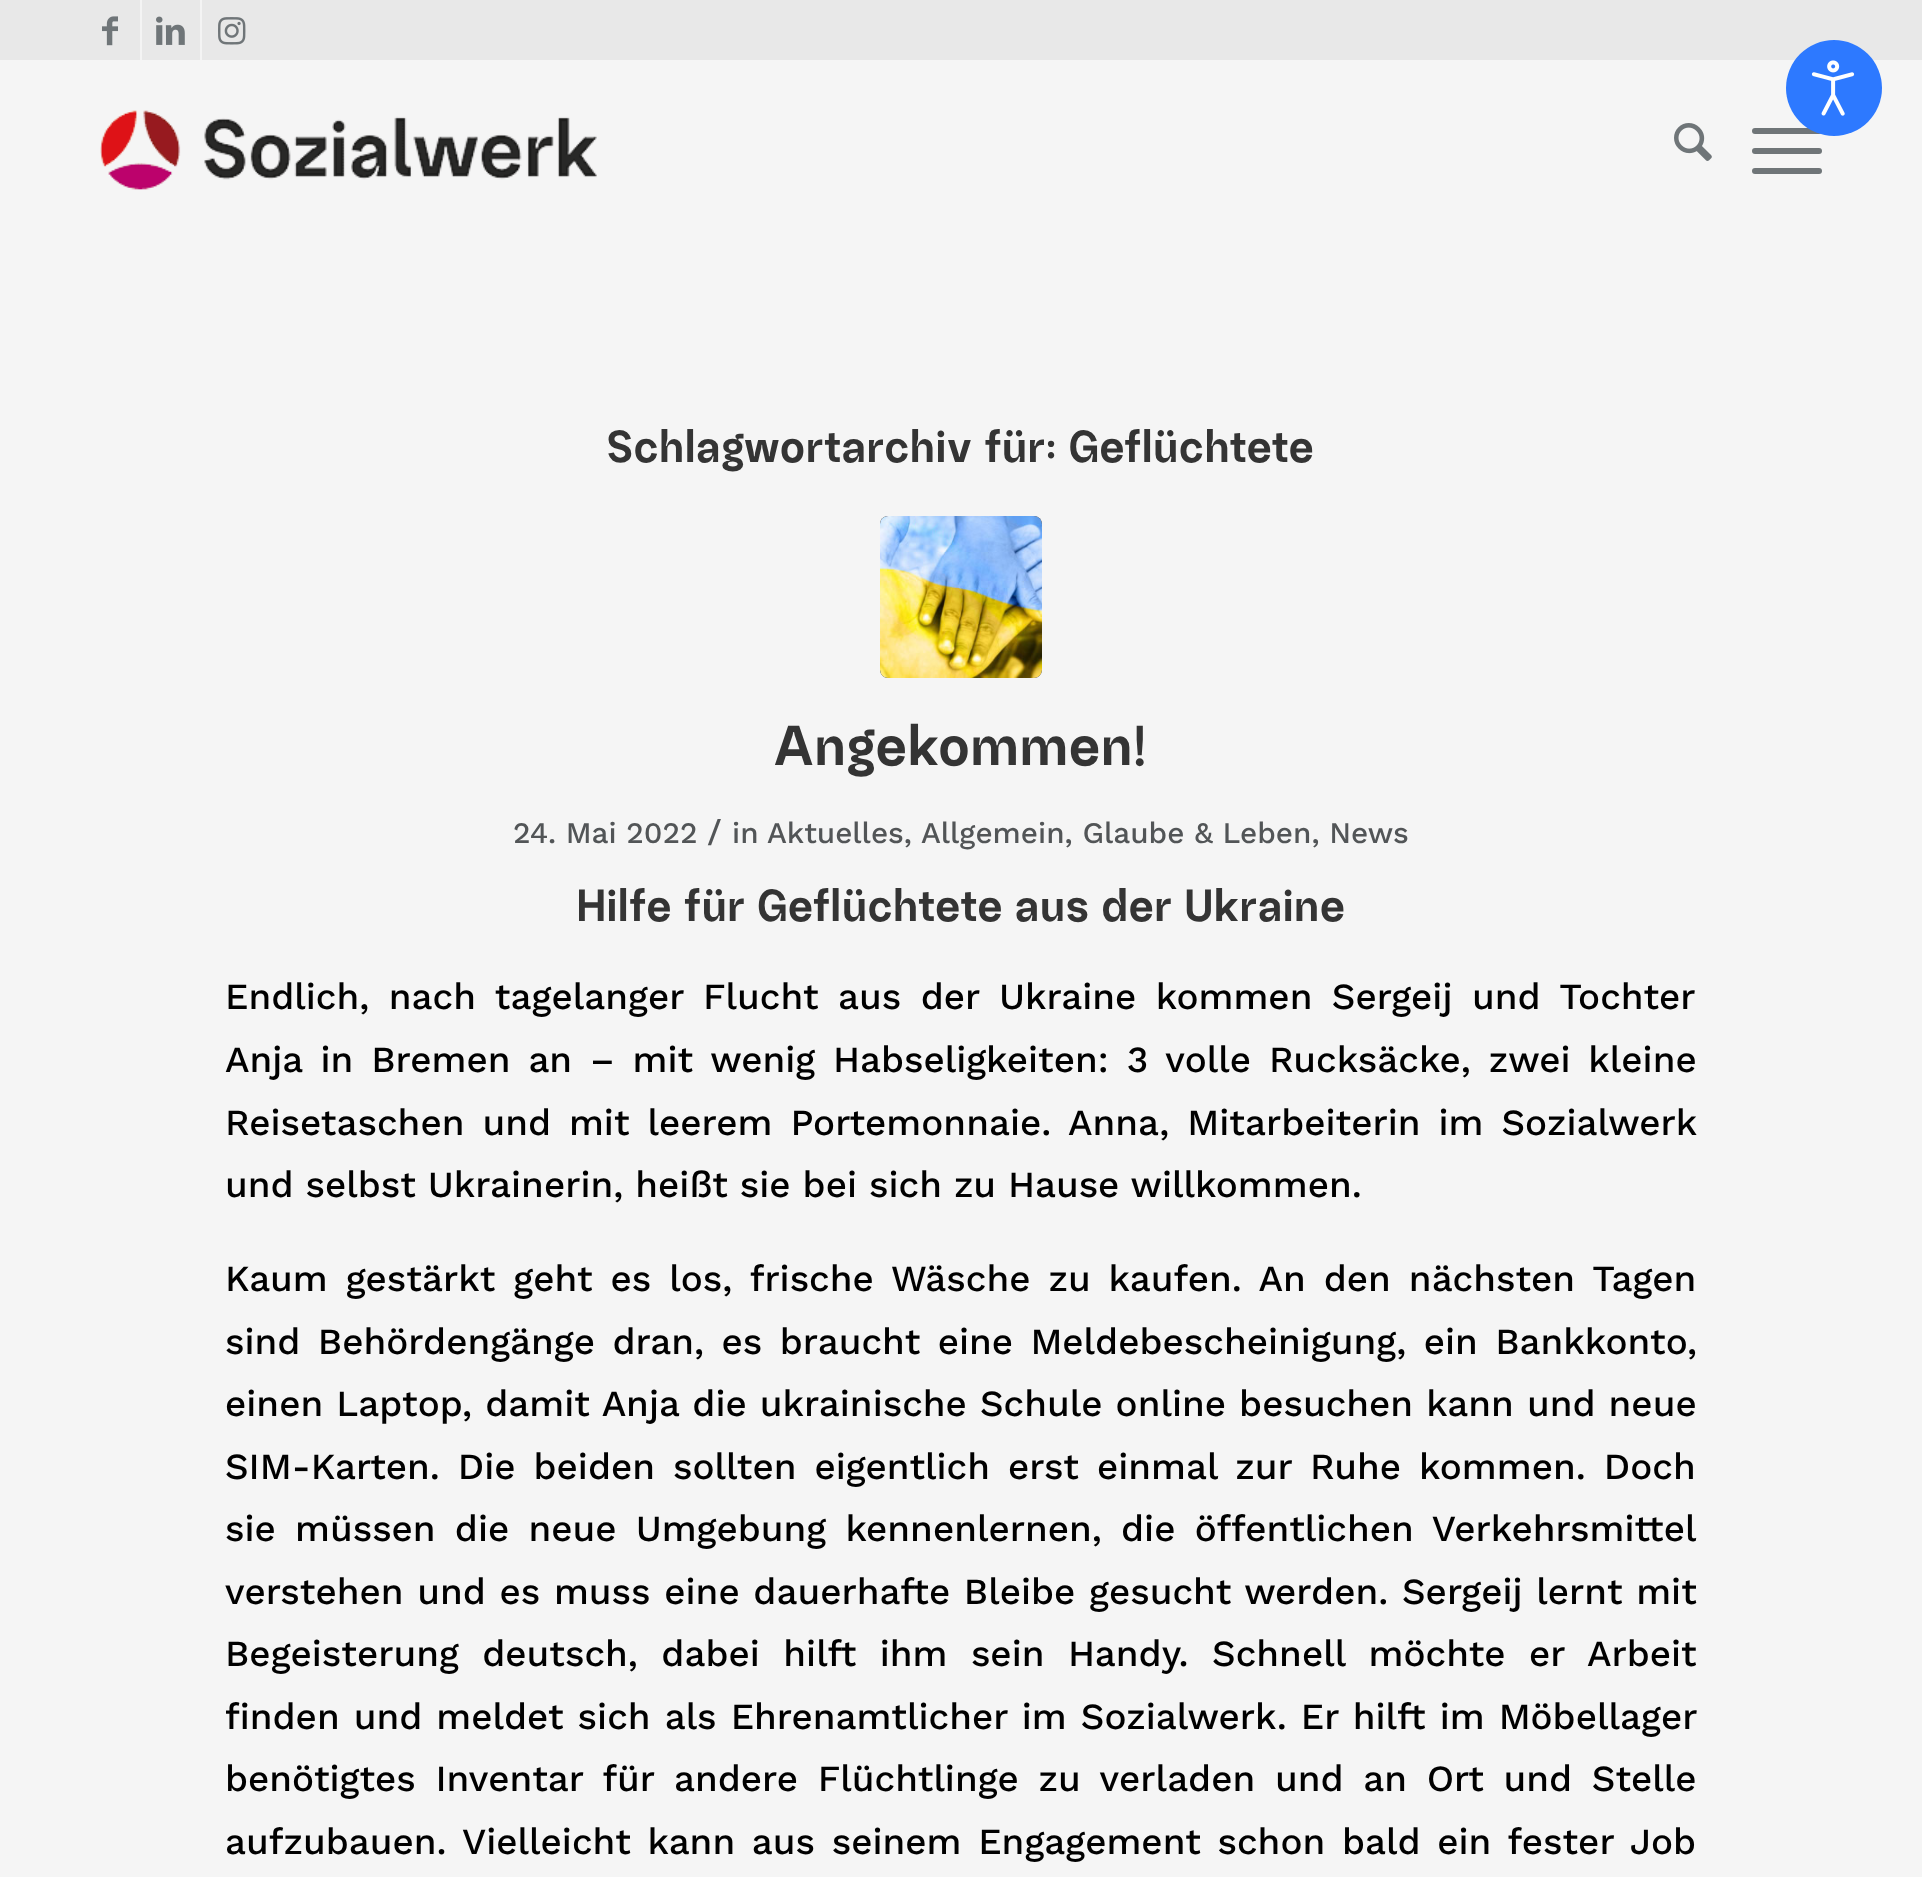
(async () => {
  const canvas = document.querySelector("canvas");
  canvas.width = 1922;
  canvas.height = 1877;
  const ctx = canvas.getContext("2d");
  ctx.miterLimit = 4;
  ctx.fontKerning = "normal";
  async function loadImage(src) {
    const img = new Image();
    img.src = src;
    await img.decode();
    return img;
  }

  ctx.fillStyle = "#f5f5f5";
  ctx.fillRect(0, 0, 1922, 1877);
  ctx.fillStyle = "#e8e8e8";
  ctx.fillRect(0, 0, 1922, 60);
  ctx.fillStyle = "#6f7578";
  ctx.beginPath();
  ctx.roundRect(1752, 128, 70, 6, 3);
  ctx.fill();
  ctx.fillStyle = "#2d79ff";
  ctx.beginPath();
  ctx.arc(1834, 88, 48, 0, Math.PI * 2);
  ctx.fill();
  ctx.drawImage(await loadImage("img/1.png"), 1811, 60, 44, 56);
  ctx.fillStyle = "#f4f4f4";
  ctx.fillRect(140, 0, 2, 60);
  ctx.drawImage(await loadImage("img/2.png"), 102, 16, 16, 30);
  ctx.fillRect(200, 0, 2, 60);
  ctx.drawImage(await loadImage("img/3.png"), 156, 16, 29, 29);
  ctx.drawImage(await loadImage("img/4.png"), 218, 17, 28, 28);
  ctx.drawImage(await loadImage("img/5.png"), 100, 110, 497, 80);
  ctx.drawImage(await loadImage("img/6.png"), 1674, 123, 38, 38);
  ctx.fillStyle = "#6f7578";
  ctx.beginPath();
  ctx.roundRect(1752, 148, 70, 6, 3);
  ctx.fill();
  ctx.beginPath();
  ctx.roundRect(1752, 168, 70, 6, 3);
  ctx.fill();
  ctx.fillStyle = "#525557";
  ctx.beginPath();
  ctx.roundRect(880, 516, 162, 162, 8);
  ctx.fill();
  ctx.drawImage(await loadImage("img/7.png"), 880, 516, 162, 162);
  ctx.letterSpacing = "1.45px";
  ctx.font = "bold 48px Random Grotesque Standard";
  ctx.fillStyle = "#343434";
  ctx.fillText("Schlagwortarchiv für: Geflüchtete", 607, 462);
  ctx.letterSpacing = "1.75px";
  ctx.font = "bold 60px Random Grotesque Standard";
  ctx.fillText("Angekommen!", 774, 765);
  ctx.letterSpacing = "0px";
  ctx.font = "500 29.75px Work Sans";
  ctx.fillStyle = "#525557";
  ctx.fillText("24. Mai 2022", 513, 843);
  ctx.font = "500 33px Work Sans";
  ctx.fillText("/", 707, 843);
  ctx.font = "500 29.75px Work Sans";
  for (const [text, x, y] of [
    ["in", 732, 843],
    ["Aktuelles,", 767, 843],
    ["Allgemein, Glaube & Leben, News", 921, 843],
  ]) {
    ctx.fillText(text, x, y);
  }
  ctx.letterSpacing = "1.45px";
  ctx.font = "bold 48px Random Grotesque Standard";
  ctx.fillStyle = "#343434";
  ctx.fillText("Hilfe für Geflüchtete aus der Ukraine", 577, 921);
  ctx.letterSpacing = "0px";
  ctx.wordSpacing = "7.5px";
  ctx.font = "500 36.8px Work Sans";
  ctx.fillStyle = "#000000";
  ctx.fillText("Endlich, nach tagelanger Flucht aus der Ukraine kommen Sergeij und Tochter", 225, 1009);
  ctx.wordSpacing = "5.9px";
  ctx.fillText("Anja in Bremen an – mit wenig Habseligkeiten: 3 volle Rucksäcke, zwei kleine", 225, 1072);
  ctx.wordSpacing = "6px";
  ctx.fillText("Reisetaschen und mit leerem Portemonnaie. Anna, Mitarbeiterin im Sozialwerk", 225, 1135);
  ctx.wordSpacing = "0px";
  ctx.fillText("und selbst Ukrainerin, heißt sie bei sich zu Hause willkommen.", 225, 1197);
  ctx.wordSpacing = "6px";
  ctx.fillText("Kaum gestärkt geht es los, frische Wäsche zu kaufen. An den nächsten Tagen", 225, 1291);
  ctx.wordSpacing = "5.5px";
  ctx.fillText("sind Behördengänge dran, es braucht eine Meldebescheinigung, ein Bankkonto,", 225, 1354);
  ctx.wordSpacing = "1.1px";
  ctx.fillText("einen Laptop, damit Anja die ukrainische Schule online besuchen kann und neue", 225, 1416);
  ctx.wordSpacing = "6px";
  ctx.fillText("SIM-Karten. Die beiden sollten eigentlich erst einmal zur Ruhe kommen. Doch", 225, 1479);
  ctx.wordSpacing = "7.25px";
  ctx.fillText("sie müssen die neue Umgebung kennenlernen, die öffentlichen Verkehrsmittel", 225, 1541);
  ctx.wordSpacing = "1.75px";
  ctx.fillText("verstehen und es muss eine dauerhafte Bleibe gesucht werden. Sergeij lernt mit", 225, 1604);
  ctx.wordSpacing = "11.5px";
  ctx.fillText("Begeisterung deutsch, dabei hilft ihm sein Handy. Schnell möchte er Arbeit", 225, 1666);
  ctx.wordSpacing = "2.1px";
  ctx.fillText("finden und meldet sich als Ehrenamtlicher im Sozialwerk. Er hilft im Möbellager", 225, 1729);
  ctx.wordSpacing = "7.75px";
  ctx.fillText("benötigtes Inventar für andere Flüchtlinge zu verladen und an Ort und Stelle", 225, 1791);
  ctx.wordSpacing = "4.75px";
  ctx.fillText("aufzubauen. Vielleicht kann aus seinem Engagement schon bald ein fester Job", 225, 1854);
})();
